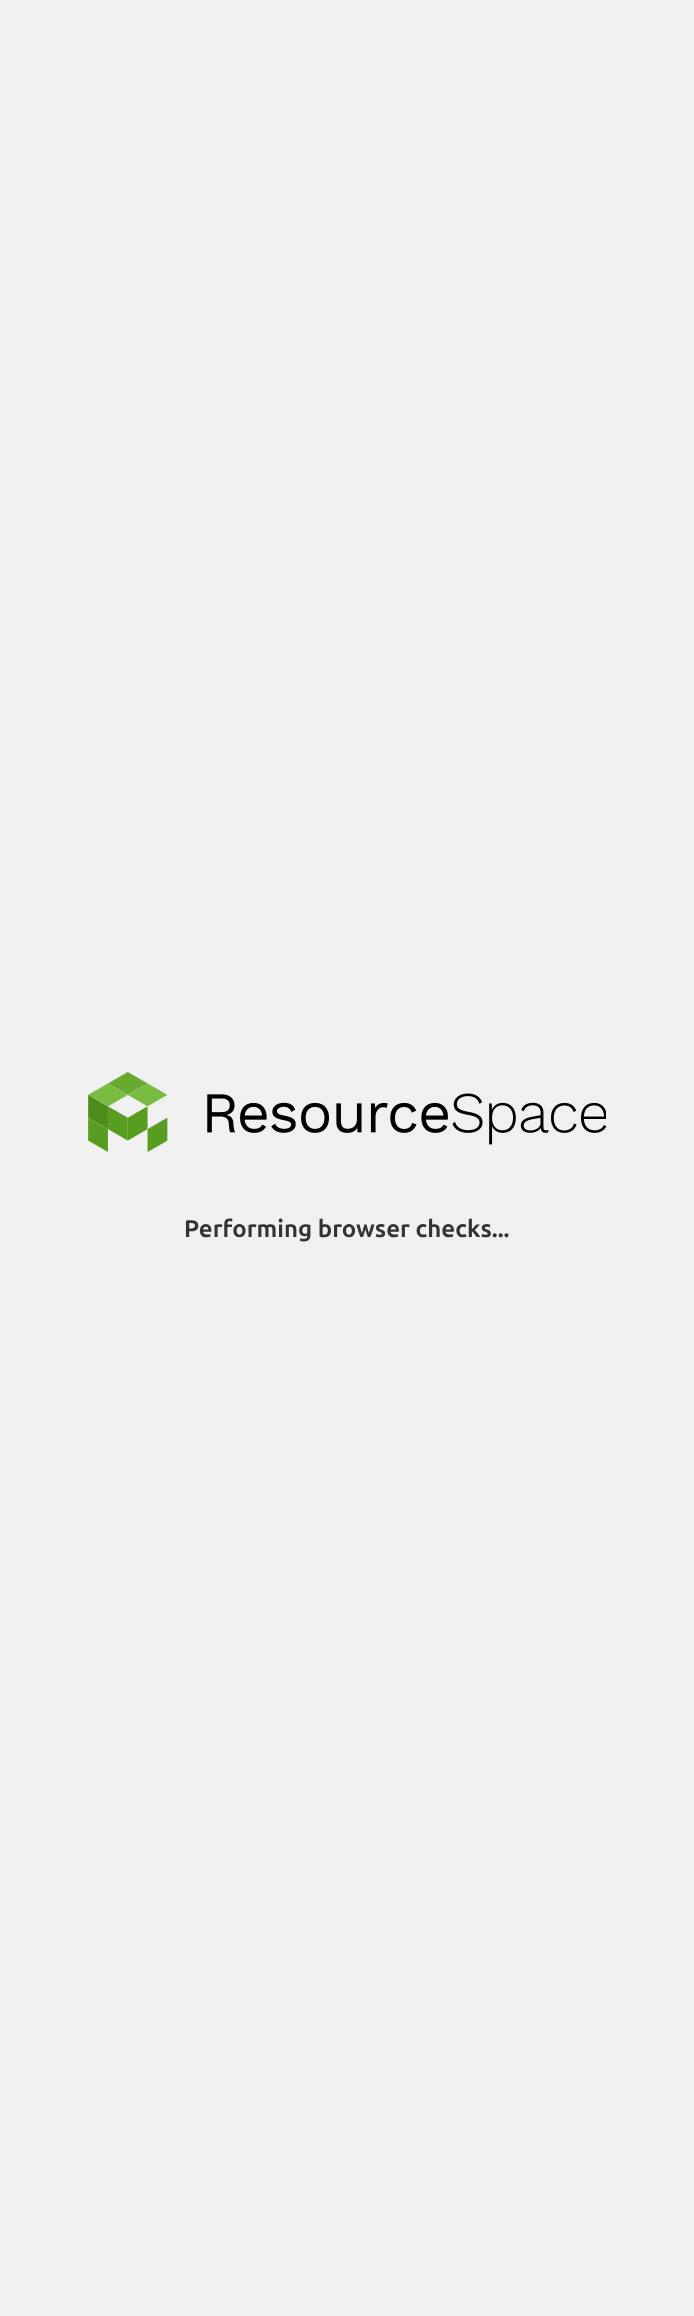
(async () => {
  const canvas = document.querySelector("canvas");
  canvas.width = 694;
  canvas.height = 2316;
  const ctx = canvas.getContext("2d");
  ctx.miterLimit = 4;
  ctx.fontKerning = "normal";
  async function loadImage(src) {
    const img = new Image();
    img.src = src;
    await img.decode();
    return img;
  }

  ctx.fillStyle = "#f0f0f0";
  ctx.fillRect(0, 0, 694, 2316);
  ctx.drawImage(await loadImage("img/1.png"), 88, 1072, 518, 80);
  ctx.font = "bold 24px Ubuntu";
  ctx.fillStyle = "#333333";
  ctx.fillText("Performing browser checks...", 184, 1237);
})();
